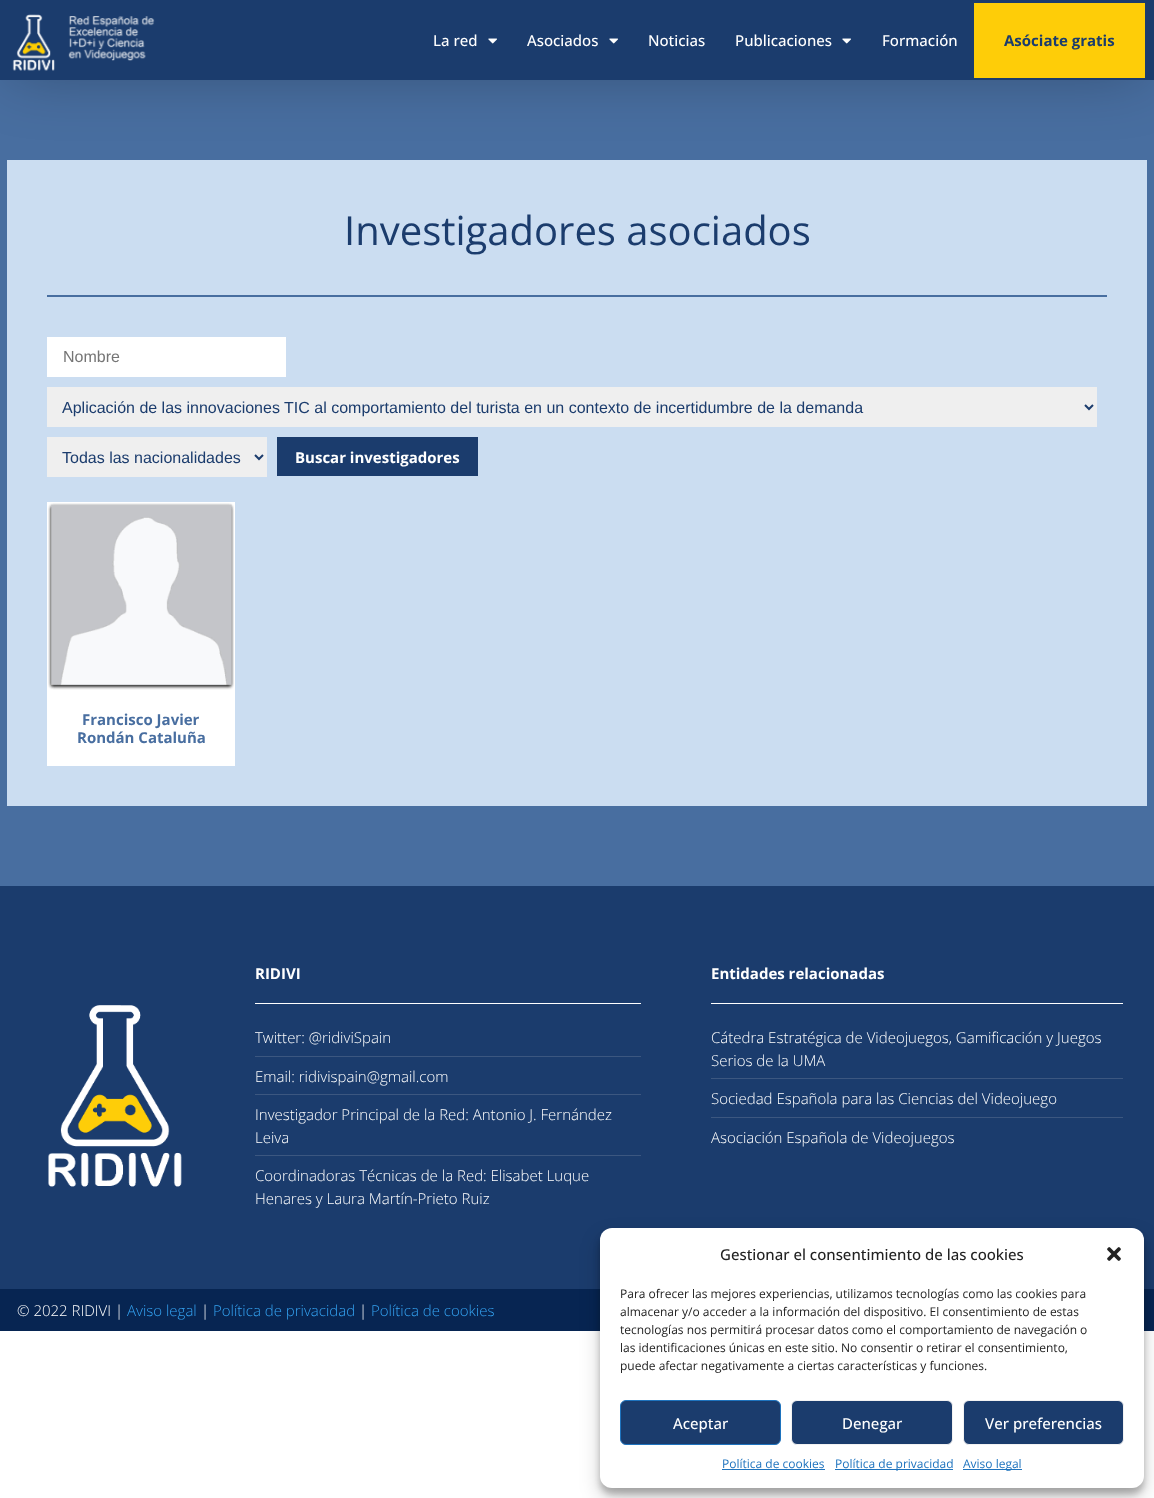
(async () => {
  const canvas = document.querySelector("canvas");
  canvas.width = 1154;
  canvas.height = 1498;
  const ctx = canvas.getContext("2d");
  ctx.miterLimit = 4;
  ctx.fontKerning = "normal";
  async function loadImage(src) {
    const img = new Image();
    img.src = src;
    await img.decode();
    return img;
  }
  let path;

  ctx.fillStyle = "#ffffff";
  ctx.fillRect(0, 0, 1154, 1498);
  ctx.fillStyle = "#486ea0";
  ctx.fillRect(0, 80, 1154, 806);
  ctx.fillStyle = "#cbddf1";
  ctx.fillRect(7, 160, 1140, 646);
  ctx.fillStyle = "rgba(0, 0, 0, 0.3)";
  ctx.filter = "blur(32px)";
  ctx.beginPath();
  ctx.rect(9, 9, 1136, 62);
  ctx.fill();
  ctx.filter = "none";
  ctx.fillStyle = "#1b3c6d";
  ctx.fillRect(0, 0, 1154, 80);
  ctx.drawImage(await loadImage("img/1.png"), 12, 14, 143, 57);
  ctx.drawImage(await loadImage("img/2.png"), 488, 38, 9, 6);
  ctx.drawImage(await loadImage("img/2.png"), 609, 38, 9, 6);
  ctx.drawImage(await loadImage("img/2.png"), 842, 38, 9, 6);
  for (const [x, y, w, h, color] of [
    [974, 3, 171, 75, "#fecd08"],
    [47, 295, 1060, 2, "#486ea0"],
    [47, 337, 239, 40, "#ffffff"],
    [47, 387, 1050, 40, "#efefef"],
  ]) {
    ctx.fillStyle = color;
    ctx.fillRect(x, y, w, h);
  }
  path = new Path2D("M1085 405L1089 409L1093 405");
  ctx.strokeStyle = "#1b3c6d";
  ctx.lineWidth = 2;
  ctx.stroke(path);
  ctx.fillRect(47, 437, 220, 40);
  path = new Path2D("M255 455L259 459L263 455");
  ctx.stroke(path);
  ctx.fillStyle = "#1b3c6d";
  ctx.fillRect(277, 437, 201, 39);
  ctx.fillStyle = "#ffffff";
  ctx.fillRect(47, 502, 188, 264);
  ctx.drawImage(await loadImage("img/3.png"), 48, 503, 186, 187);
  ctx.fillStyle = "#1b3c6d";
  ctx.fillRect(0, 886, 1154, 403);
  ctx.drawImage(await loadImage("img/4.png"), 48, 1005, 134, 182);
  for (const [x, y, w, h, color] of [
    [255, 1003, 386, 1, "#ffffff"],
    [255, 1056, 386, 1, "#3c5780"],
    [255, 1094, 386, 1, "#3c5780"],
    [255, 1155, 386, 1, "#3c5780"],
    [711, 1003, 412, 1, "#ffffff"],
    [711, 1078, 412, 1, "#3c5780"],
    [711, 1117, 412, 1, "#3c5780"],
    [0, 1289, 1154, 42, "#072552"],
  ]) {
    ctx.fillStyle = color;
    ctx.fillRect(x, y, w, h);
  }
  ctx.fillStyle = "rgba(0, 0, 0, 0.23)";
  ctx.filter = "blur(3px)";
  ctx.beginPath();
  ctx.roundRect(600, 1234, 544, 260, 12);
  ctx.fill();
  ctx.filter = "none";
  ctx.fillStyle = "rgba(0, 0, 0, 0.19)";
  ctx.filter = "blur(10px)";
  ctx.beginPath();
  ctx.roundRect(600, 1238, 544, 260, 12);
  ctx.fill();
  ctx.filter = "none";
  ctx.fillStyle = "#ffffff";
  ctx.beginPath();
  ctx.roundRect(600, 1228, 544, 260, 12);
  ctx.fill();
  ctx.drawImage(await loadImage("img/5.png"), 1107, 1247, 14, 14);
  ctx.fillStyle = "#1b3c6d";
  ctx.beginPath();
  ctx.roundRect(620.5, 1400.5, 160, 44, 5.5);
  ctx.fill();
  ctx.strokeStyle = "#1e73be";
  ctx.lineWidth = 1;
  ctx.stroke();
  ctx.beginPath();
  ctx.roundRect(791.5, 1400.5, 161, 44, 5.5);
  ctx.fill();
  ctx.strokeStyle = "#f2f2f2";
  ctx.stroke();
  ctx.beginPath();
  ctx.roundRect(963.5, 1400.5, 160, 44, 5.5);
  ctx.fill();
  ctx.stroke();
  for (const [x, y, w, h, color] of [
    [722, 1469, 103, 1, "#1e73be"],
    [835, 1469, 118, 1, "#1e73be"],
    [963, 1469, 59, 1, "#1e73be"],
  ]) {
    ctx.fillStyle = color;
    ctx.fillRect(x, y, w, h);
  }
  ctx.font = "500 15px Open Sans";
  ctx.fillStyle = "#ffffff";
  for (const [text, x, y] of [
    ["La red", 433, 46],
    ["Asociados", 527, 46],
    ["Noticias", 648, 46],
    ["Publicaciones", 735, 46],
    ["Formación", 882, 46],
  ]) {
    ctx.fillText(text, x, y);
  }
  ctx.font = "bold 15px Open Sans";
  ctx.fillStyle = "#1b3c6d";
  ctx.fillText("Asóciate gratis", 1004, 46);
  ctx.font = "40px Open Sans";
  ctx.fillText("Investigadores asociados", 344, 245);
  ctx.font = "16px Liberation Sans";
  ctx.fillStyle = "#757575";
  ctx.fillText("Nombre", 63, 362);
  ctx.fillStyle = "#1b3c6d";
  ctx.fillText("Aplicación de las innovaciones TIC al comportamiento del turista en un contexto de incertidumbre de la demanda", 62, 413);
  ctx.fillText("Todas las nacionalidades", 62, 463);
  ctx.font = "bold 15px Open Sans";
  ctx.fillStyle = "#ffffff";
  ctx.fillText("Buscar investigadores", 295, 463);
  ctx.fillStyle = "#486ea0";
  ctx.fillText("Francisco Javier", 82, 725);
  ctx.fillText("Rondán Cataluña", 77, 743);
  ctx.fillStyle = "#ffffff";
  ctx.fillText("RIDIVI", 255, 979);
  ctx.font = "300 15px Open Sans";
  for (const [text, x, y] of [
    ["Twitter: @ridiviSpain", 255, 1043],
    ["Email: ridivispain@gmail.com", 255, 1082],
    ["Investigador Principal de la Red: Antonio J. Fernández", 255, 1120],
    ["Leiva", 255, 1143],
    ["Coordinadoras Técnicas de la Red: Elisabet Luque", 255, 1181],
    ["Henares y Laura Martín-Prieto Ruiz", 255, 1204],
  ]) {
    ctx.fillText(text, x, y);
  }
  ctx.font = "bold 15px Open Sans";
  ctx.fillText("Entidades relacionadas", 711, 979);
  ctx.font = "300 15px Open Sans";
  for (const [text, x, y] of [
    ["Cátedra Estratégica de Videojuegos, Gamificación y Juegos", 711, 1043],
    ["Serios de la UMA", 711, 1066],
    ["Sociedad Española para las Ciencias del Videojuego", 711, 1104],
    ["Asociación Española de Videojuegos", 711, 1143],
    ["© 2022 RIDIVI |", 17, 1316],
  ]) {
    ctx.fillText(text, x, y);
  }
  ctx.fillStyle = "#34a3f2";
  ctx.fillText("Aviso legal", 127, 1316);
  ctx.fillStyle = "#ffffff";
  ctx.fillText("|", 201, 1316);
  ctx.fillStyle = "#34a3f2";
  ctx.fillText("Política de privacidad", 213, 1316);
  ctx.fillStyle = "#ffffff";
  ctx.fillText("|", 359, 1316);
  ctx.fillStyle = "#34a3f2";
  ctx.fillText("Política de cookies", 371, 1316);
  ctx.font = "500 15px Open Sans";
  ctx.fillStyle = "#222222";
  ctx.fillText("Gestionar el consentimiento de las cookies", 720, 1260);
  ctx.font = "12px Open Sans";
  for (const [text, x, y] of [
    ["Para ofrecer las mejores experiencias, utilizamos tecnologías como las cookies para", 620, 1298],
    ["almacenar y/o acceder a la información del dispositivo. El consentimiento de estas", 620, 1316],
    ["tecnologías nos permitirá procesar datos como el comportamiento de navegación o", 620, 1334],
    ["las identificaciones únicas en este sitio. No consentir o retirar el consentimiento,", 620, 1352],
    ["puede afectar negativamente a ciertas características y funciones.", 620, 1370],
  ]) {
    ctx.fillText(text, x, y);
  }
  ctx.font = "500 15px Open Sans";
  ctx.fillStyle = "#ffffff";
  for (const [text, x, y] of [
    ["Aceptar", 673, 1429],
    ["Denegar", 842, 1429],
    ["Ver preferencias", 985, 1429],
  ]) {
    ctx.fillText(text, x, y);
  }
  ctx.font = "12px Open Sans";
  ctx.fillStyle = "#1e73be";
  for (const [text, x, y] of [
    ["Política de cookies", 722, 1468],
    ["Política de privacidad", 835, 1468],
    ["Aviso legal", 963, 1468],
  ]) {
    ctx.fillText(text, x, y);
  }
})();
